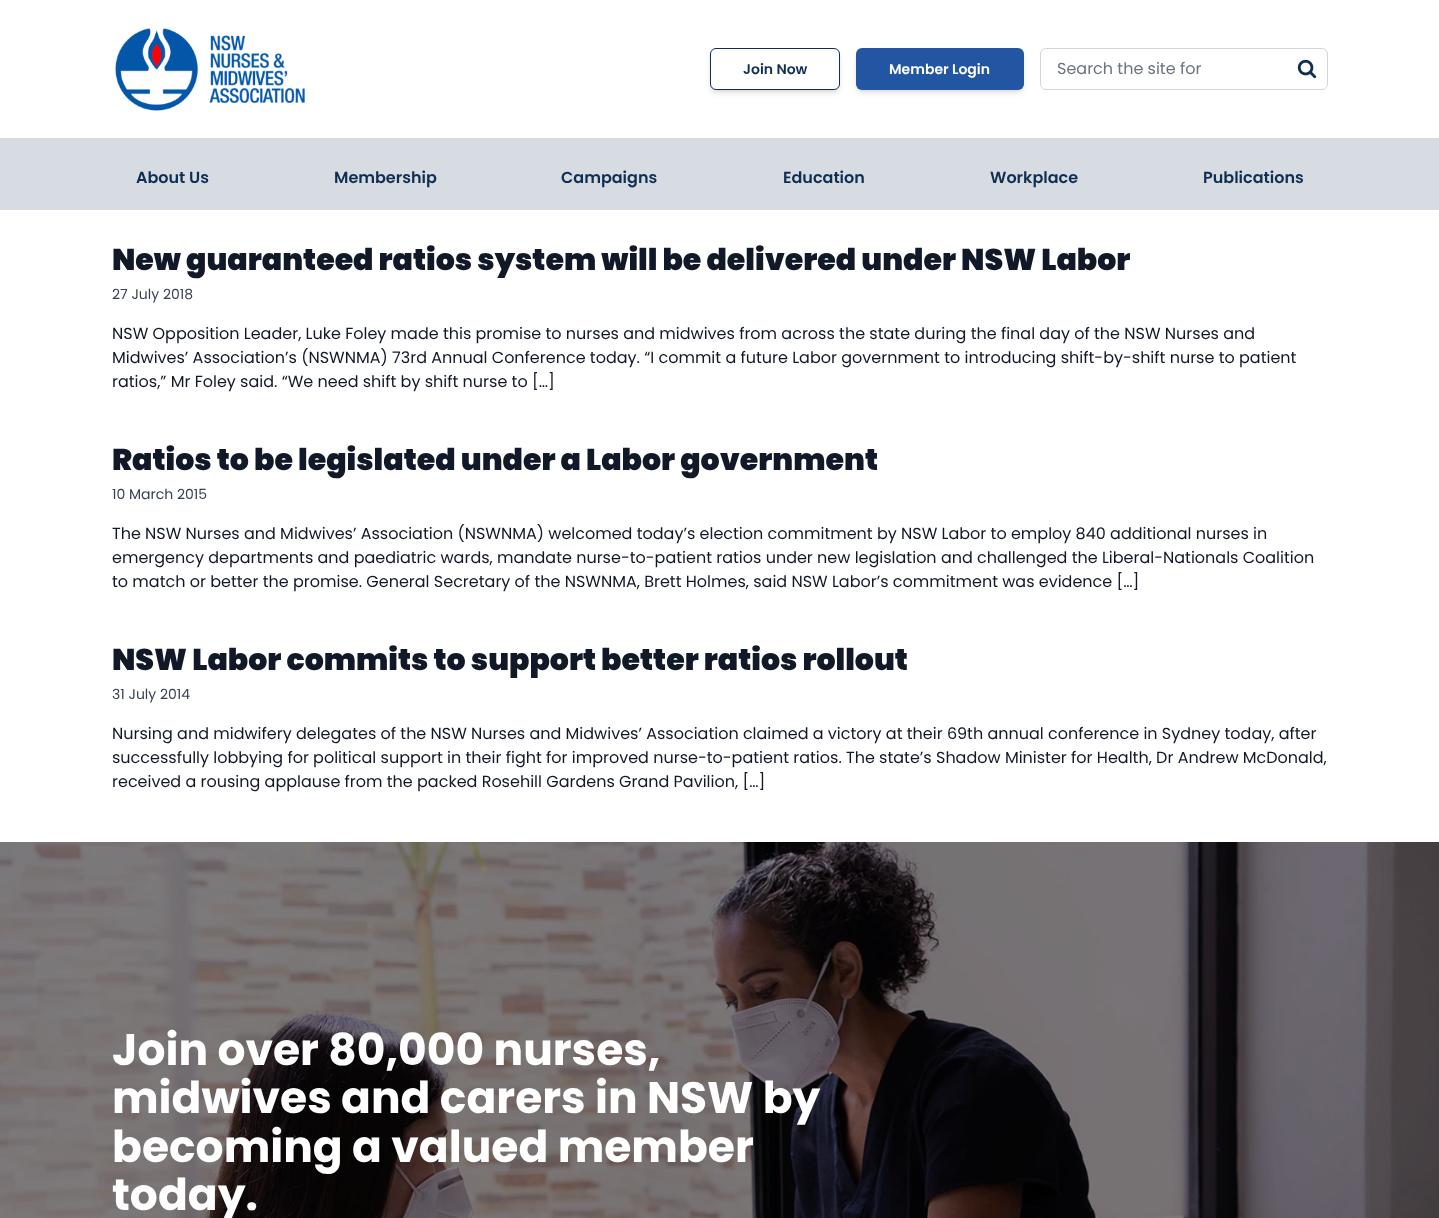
(async () => {
  const canvas = document.querySelector("canvas");
  canvas.width = 1439;
  canvas.height = 1218;
  const ctx = canvas.getContext("2d");
  ctx.miterLimit = 4;
  ctx.fontKerning = "normal";
  async function loadImage(src) {
    const img = new Image();
    img.src = src;
    await img.decode();
    return img;
  }

  ctx.fillStyle = "#ffffff";
  ctx.fillRect(0, 0, 1439, 1218);
  ctx.drawImage(await loadImage("img/1.png"), 115, 28, 190, 83);
  ctx.fillStyle = "rgba(0, 0, 0, 0.1)";
  ctx.filter = "blur(2px)";
  ctx.beginPath();
  ctx.roundRect(712, 52, 126, 38, 4);
  ctx.fill();
  ctx.filter = "none";
  ctx.filter = "blur(3px)";
  ctx.beginPath();
  ctx.roundRect(711, 53, 128, 40, 5);
  ctx.fill();
  ctx.filter = "none";
  ctx.fillStyle = "#ffffff";
  ctx.beginPath();
  ctx.roundRect(710.5, 48.5, 129, 41, 5.5);
  ctx.fill();
  ctx.strokeStyle = "#0f2e53";
  ctx.stroke();
  ctx.fillStyle = "rgba(0, 0, 0, 0.1)";
  ctx.filter = "blur(2px)";
  ctx.beginPath();
  ctx.roundRect(858, 52, 164, 38, 4);
  ctx.fill();
  ctx.filter = "none";
  ctx.filter = "blur(3px)";
  ctx.beginPath();
  ctx.roundRect(857, 53, 166, 40, 5);
  ctx.fill();
  ctx.filter = "none";
  ctx.fillStyle = "#2255a2";
  ctx.beginPath();
  ctx.roundRect(856, 48, 168, 42, 6);
  ctx.fill();
  ctx.beginPath();
  ctx.roundRect(1040.5, 48.5, 287, 41, 5.5);
  ctx.strokeStyle = "#d1d5db";
  ctx.stroke();
  ctx.drawImage(await loadImage("img/2.png"), 1297, 59, 20, 20);
  ctx.fillStyle = "#d7dbe2";
  ctx.fillRect(0, 138, 1439, 72);
  ctx.drawImage(await loadImage("img/3.png"), 0, 842, 1439, 376);
  ctx.font = "600 14px Poppins";
  ctx.fillStyle = "#0f2e53";
  ctx.fillText("Join Now", 743, 74);
  ctx.fillStyle = "#ffffff";
  ctx.fillText("Member Login", 889, 74);
  ctx.font = "16px Poppins";
  ctx.fillStyle = "#6b7280";
  ctx.fillText("Search the site for", 1057, 74);
  ctx.font = "600 16px Poppins";
  ctx.fillStyle = "#0f2e53";
  for (const [text, x, y] of [
    ["About Us", 136, 183],
    ["Membership", 334, 183],
    ["Campaigns", 561, 183],
    ["Education", 783, 183],
    ["Workplace", 990, 183],
    ["Publications", 1203, 183],
  ]) {
    ctx.fillText(text, x, y);
  }
  ctx.font = "900 30px Poppins";
  ctx.fillStyle = "#111827";
  ctx.fillText("New guaranteed ratios system will be delivered under NSW Labor", 112, 270);
  ctx.font = "14px Poppins";
  ctx.fillStyle = "#374151";
  ctx.fillText("27 July 2018", 112, 299);
  ctx.font = "16px Poppins";
  ctx.fillStyle = "#111827";
  for (const [text, x, y] of [
    ["NSW Opposition Leader, Luke Foley made this promise to nurses and midwives from across the state during the final day of the NSW Nurses and", 112, 339],
    ["Midwives’ Association’s (NSWNMA) 73rd Annual Conference today. “I commit a future Labor government to introducing shift-by-shift nurse to patient", 112, 363],
    ["ratios,” Mr Foley said. “We need shift by shift nurse to […]", 112, 387],
  ]) {
    ctx.fillText(text, x, y);
  }
  ctx.font = "900 30px Poppins";
  ctx.fillText("Ratios to be legislated under a Labor government", 112, 470);
  ctx.font = "14px Poppins";
  ctx.fillStyle = "#374151";
  ctx.fillText("10 March 2015", 112, 499);
  ctx.font = "16px Poppins";
  ctx.fillStyle = "#111827";
  for (const [text, x, y] of [
    ["The NSW Nurses and Midwives’ Association (NSWNMA) welcomed today’s election commitment by NSW Labor to employ 840 additional nurses in", 112, 539],
    ["emergency departments and paediatric wards, mandate nurse-to-patient ratios under new legislation and challenged the Liberal-Nationals Coalition", 112, 563],
    ["to match or better the promise. General Secretary of the NSWNMA, Brett Holmes, said NSW Labor’s commitment was evidence […]", 112, 587],
  ]) {
    ctx.fillText(text, x, y);
  }
  ctx.font = "900 30px Poppins";
  ctx.fillText("NSW Labor commits to support better ratios rollout", 112, 670);
  ctx.font = "14px Poppins";
  ctx.fillStyle = "#374151";
  ctx.fillText("31 July 2014", 112, 699);
  ctx.font = "16px Poppins";
  ctx.fillStyle = "#111827";
  for (const [text, x, y] of [
    ["Nursing and midwifery delegates of the NSW Nurses and Midwives’ Association claimed a victory at their 69th annual conference in Sydney today, after", 112, 739],
    ["successfully lobbying for political support in their fight for improved nurse-to-patient ratios. The state’s Shadow Minister for Health, Dr Andrew McDonald,", 112, 763],
    ["received a rousing applause from the packed Rosehill Gardens Grand Pavilion, […]", 112, 787],
  ]) {
    ctx.fillText(text, x, y);
  }
  ctx.font = "bold 44px Poppins";
  ctx.fillStyle = "#ffffff";
  for (const [text, x, y] of [
    ["Join over 80,000 nurses,", 112, 1065],
    ["midwives and carers in NSW by", 112, 1113],
    ["becoming a valued member", 112, 1162],
    ["today.", 112, 1210],
  ]) {
    ctx.fillText(text, x, y);
  }
})();
